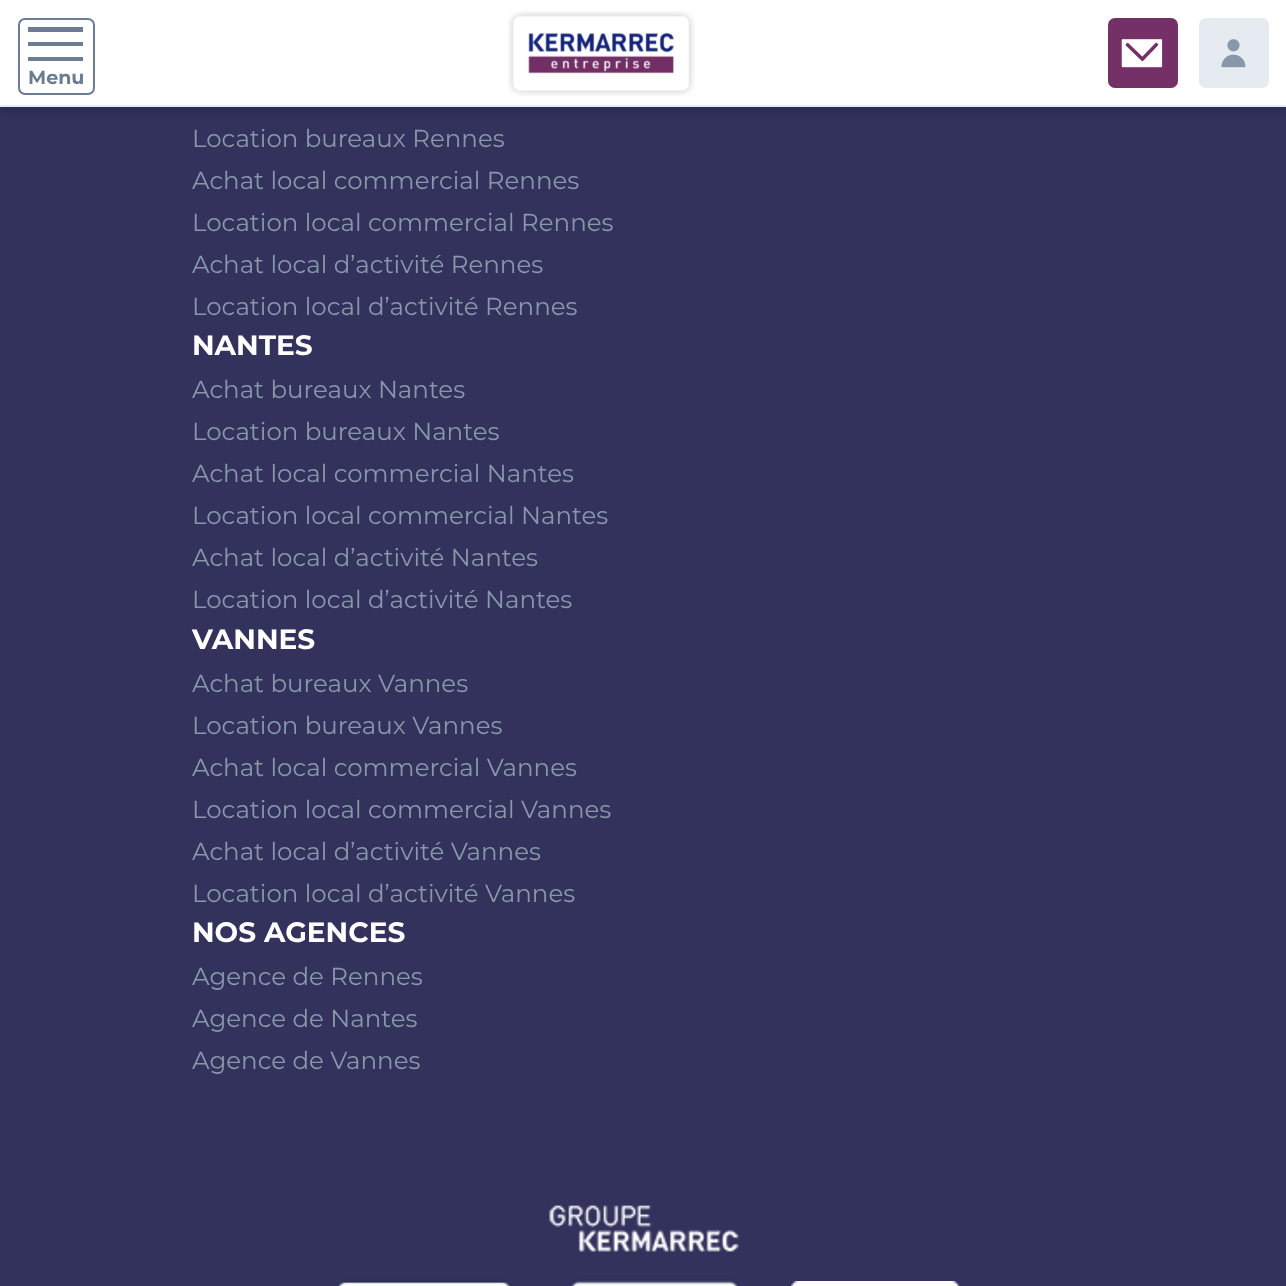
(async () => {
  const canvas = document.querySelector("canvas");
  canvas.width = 1286;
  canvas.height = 1286;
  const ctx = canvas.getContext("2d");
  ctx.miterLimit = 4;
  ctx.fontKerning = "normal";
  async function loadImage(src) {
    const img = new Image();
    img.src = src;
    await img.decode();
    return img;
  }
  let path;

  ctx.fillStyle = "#32325d";
  ctx.fillRect(0, 0, 1286, 1286);
  ctx.fillStyle = "#ffffff";
  ctx.fillRect(0, 0, 1286, 105);
  ctx.save();
  ctx.beginPath();
  ctx.rect(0, 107, 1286, 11);
  ctx.clip();
  ctx.fillStyle = "rgba(0, 0, 0, 0.16)";
  ctx.filter = "blur(5px)";
  ctx.beginPath();
  ctx.rect(0, 5, 1286, 107);
  ctx.fill();
  ctx.filter = "none";
  ctx.restore();
  ctx.fillStyle = "#e8edf2";
  ctx.fillRect(0, 105, 1286, 2);
  ctx.beginPath();
  ctx.roundRect(19, 19, 75, 75, 6);
  ctx.strokeStyle = "#6b7c93";
  ctx.lineWidth = 2;
  ctx.stroke();
  ctx.fillStyle = "#6b7c93";
  path = new Path2D("M28 42H83V46H28ZM28 27H83V32H28ZM28 57H83V61H28Z");
  ctx.fill(path);
  ctx.drawImage(await loadImage("img/1.png"), 508, 11, 187, 85);
  ctx.fillStyle = "#753068";
  ctx.beginPath();
  ctx.roundRect(1108, 18, 70, 70, 7);
  ctx.fill();
  ctx.drawImage(await loadImage("img/2.png"), 1121, 39, 42, 29);
  ctx.fillStyle = "#e6ebf1";
  ctx.beginPath();
  ctx.roundRect(1199, 18, 70, 70, 7);
  ctx.fill();
  ctx.drawImage(await loadImage("img/3.png"), 1221, 39, 25, 29);
  ctx.drawImage(await loadImage("img/4.png"), 549, 1205, 190, 47);
  ctx.drawImage(await loadImage("img/5.png"), 338, 1279, 173, 7);
  ctx.drawImage(await loadImage("img/6.png"), 571, 1279, 167, 7);
  ctx.drawImage(await loadImage("img/7.png"), 791, 1281, 168, 5);
  ctx.font = "bold 19px Montserrat";
  ctx.fillStyle = "#6b7c93";
  ctx.fillText("Menu", 28, 84);
  ctx.font = "24.5px Montserrat";
  ctx.fillStyle = "#8898aa";
  for (const [text, x, y] of [
    ["Location bureaux Rennes", 192, 147],
    ["Achat local commercial Rennes", 192, 189],
    ["Location local commercial Rennes", 192, 231],
    ["Achat local d’activité Rennes", 192, 273],
    ["Location local d’activité Rennes", 192, 315],
  ]) {
    ctx.fillText(text, x, y);
  }
  ctx.font = "bold 28px Montserrat";
  ctx.fillStyle = "#ffffff";
  ctx.fillText("NANTES", 192, 355);
  ctx.font = "24.5px Montserrat";
  ctx.fillStyle = "#8898aa";
  for (const [text, x, y] of [
    ["Achat bureaux Nantes", 192, 398],
    ["Location bureaux Nantes", 192, 440],
    ["Achat local commercial Nantes", 192, 482],
    ["Location local commercial Nantes", 192, 524],
    ["Achat local d’activité Nantes", 192, 566],
    ["Location local d’activité Nantes", 192, 608],
  ]) {
    ctx.fillText(text, x, y);
  }
  ctx.font = "bold 28px Montserrat";
  ctx.fillStyle = "#ffffff";
  ctx.fillText("VANNES", 192, 649);
  ctx.font = "24.5px Montserrat";
  ctx.fillStyle = "#8898aa";
  for (const [text, x, y] of [
    ["Achat bureaux Vannes", 192, 692],
    ["Location bureaux Vannes", 192, 734],
    ["Achat local commercial Vannes", 192, 776],
    ["Location local commercial Vannes", 192, 818],
    ["Achat local d’activité Vannes", 192, 860],
    ["Location local d’activité Vannes", 192, 902],
  ]) {
    ctx.fillText(text, x, y);
  }
  ctx.font = "bold 28px Montserrat";
  ctx.fillStyle = "#ffffff";
  ctx.fillText("NOS AGENCES", 192, 942);
  ctx.font = "24.5px Montserrat";
  ctx.fillStyle = "#8898aa";
  for (const [text, x, y] of [
    ["Agence de Rennes", 192, 985],
    ["Agence de Nantes", 192, 1027],
    ["Agence de Vannes", 192, 1069],
  ]) {
    ctx.fillText(text, x, y);
  }
})();
